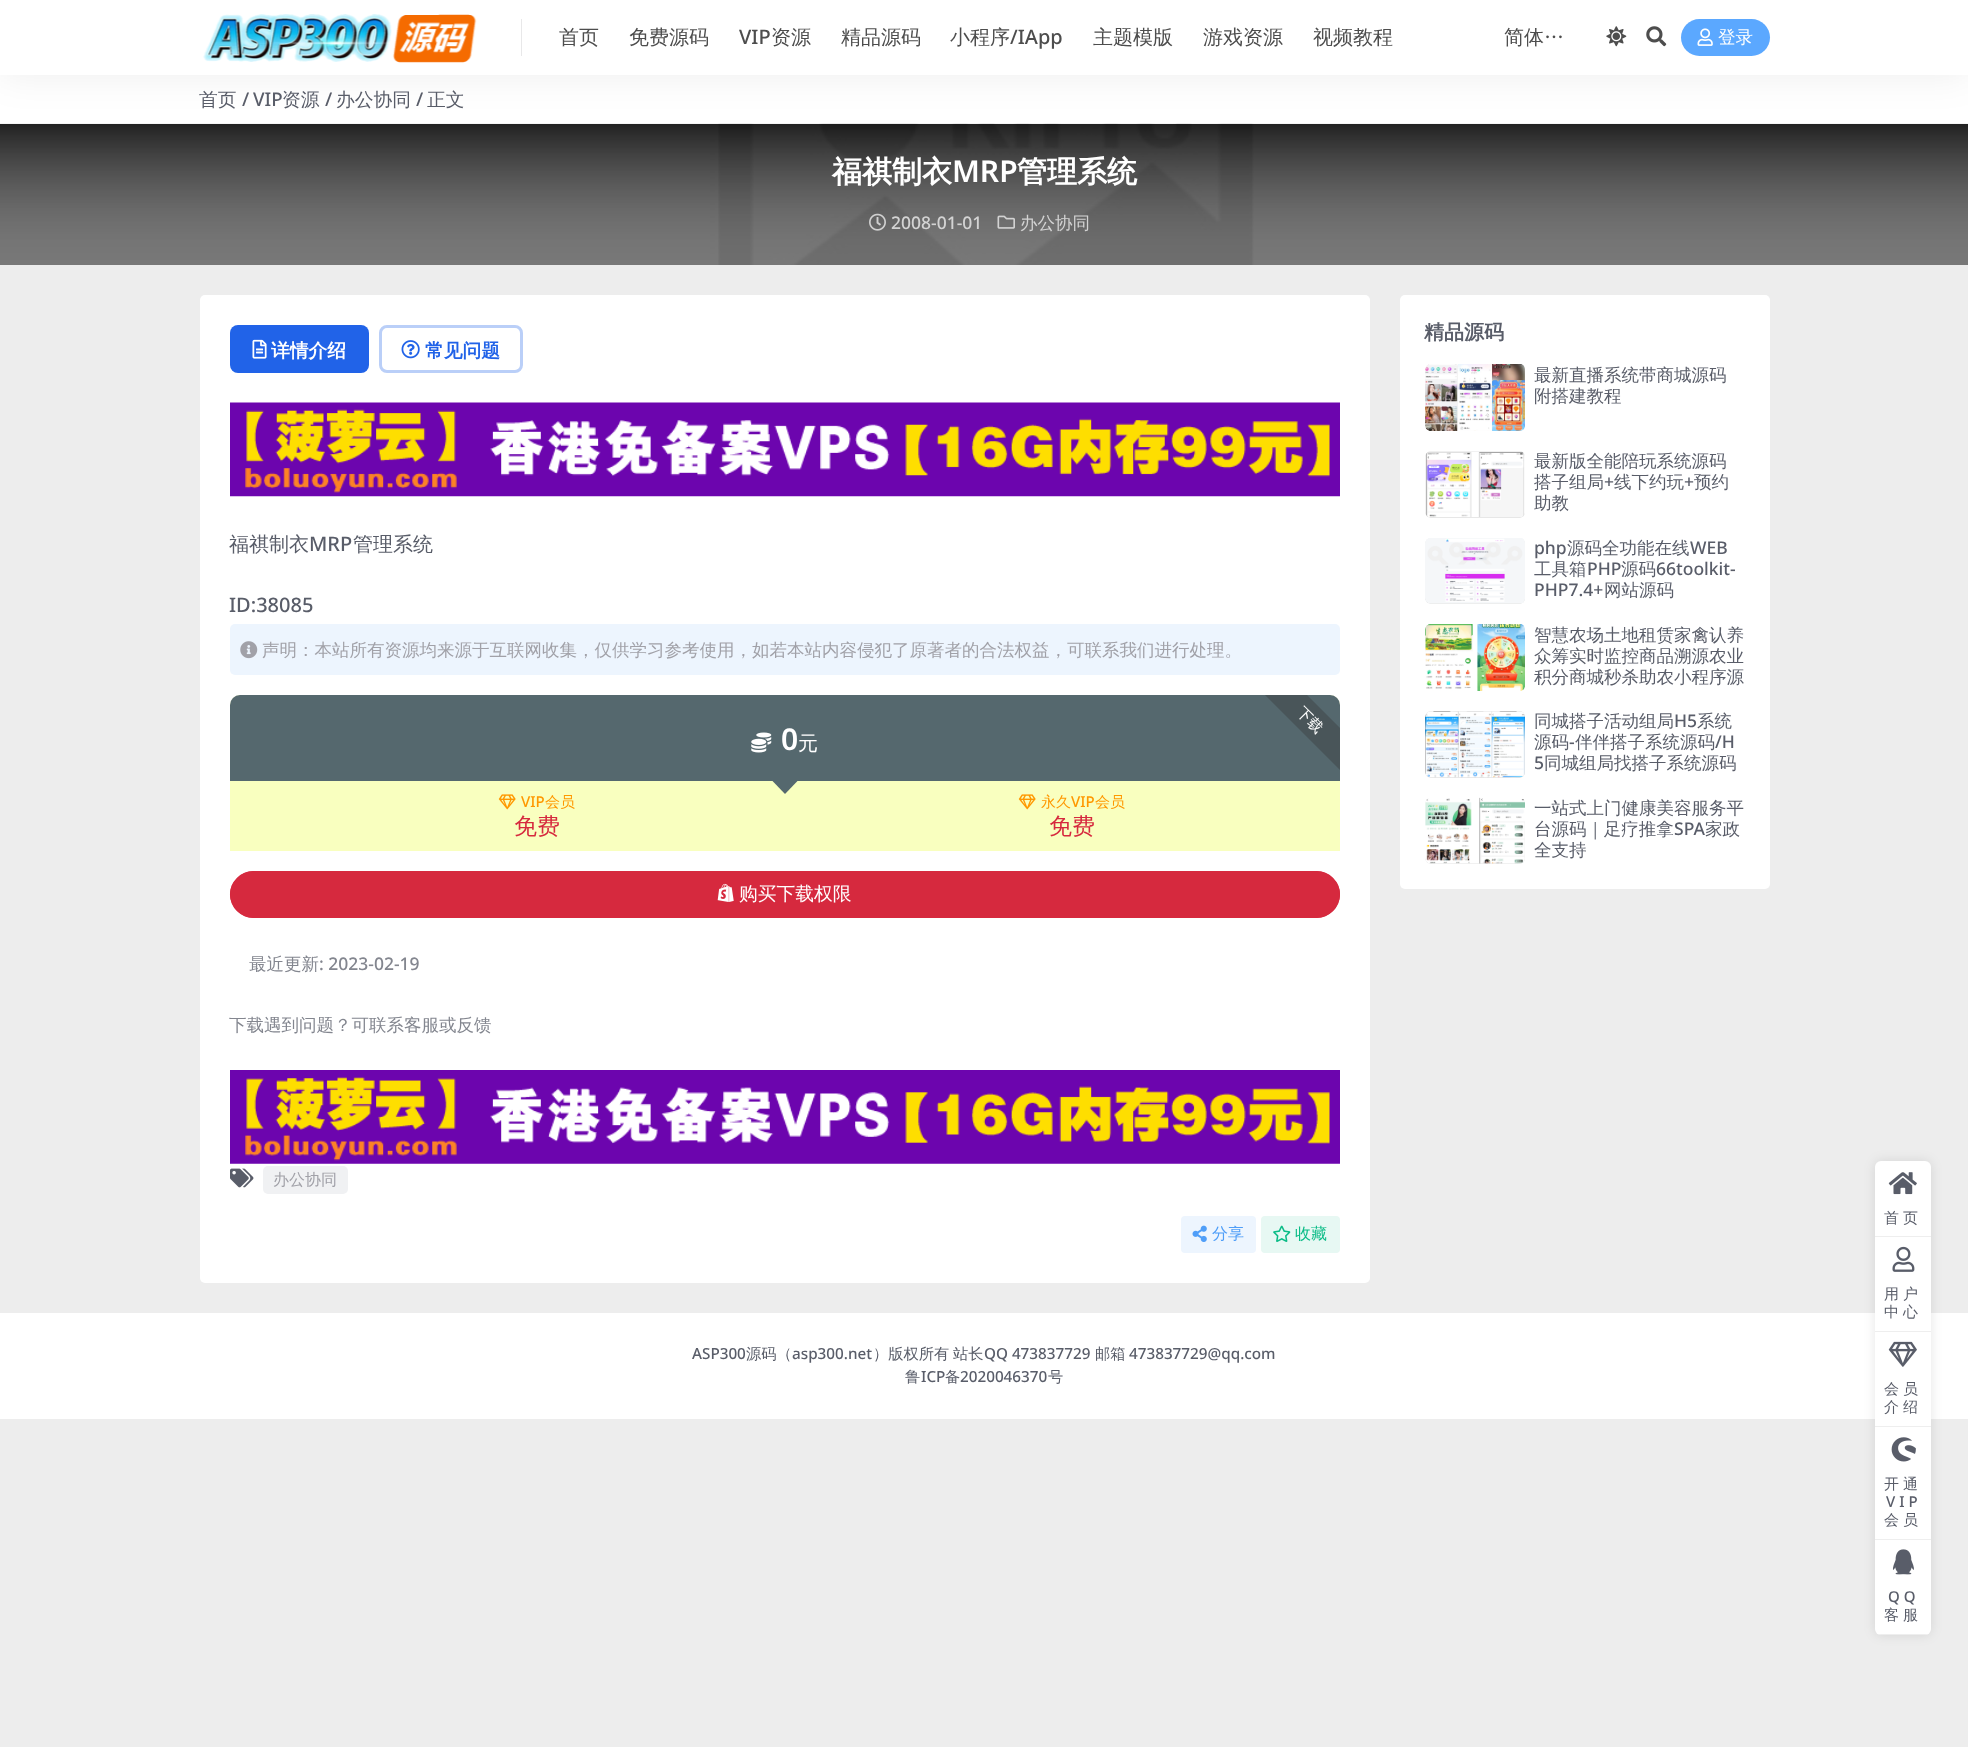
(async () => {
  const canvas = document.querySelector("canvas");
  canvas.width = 1968;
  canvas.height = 1747;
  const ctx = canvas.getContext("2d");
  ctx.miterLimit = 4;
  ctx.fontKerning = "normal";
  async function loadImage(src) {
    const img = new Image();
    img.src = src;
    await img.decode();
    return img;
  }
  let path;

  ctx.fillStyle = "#ededed";
  ctx.fillRect(0, 0, 1968, 1747);
  ctx.fillStyle = "#ffffff";
  ctx.fillRect(0, 75, 1968, 49);
  ctx.drawImage(await loadImage("img/5.png"), 0, 123, 1968, 142);
  ctx.fillStyle = "rgba(0, 0, 0, 0.07)";
  ctx.filter = "blur(19px)";
  ctx.beginPath();
  ctx.rect(0, 0, 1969, 75);
  ctx.fill();
  ctx.filter = "none";
  ctx.fillStyle = "#ffffff";
  ctx.fillRect(0, 0, 1968, 75);
  ctx.drawImage(await loadImage("img/1.png"), 203, 14, 274, 49);
  ctx.fillStyle = "#e8e8e9";
  ctx.fillRect(521, 19, 1, 37);
  ctx.drawImage(await loadImage("img/2.png"), 1606, 26, 21, 21);
  ctx.drawImage(await loadImage("img/3.png"), 1646, 26, 21, 21);
  ctx.fillStyle = "#5ba8ff";
  ctx.beginPath();
  ctx.roundRect(1681, 19, 89, 37, 18.5);
  ctx.fill();
  ctx.drawImage(await loadImage("img/4.png"), 1697, 28, 16, 18);
  ctx.drawImage(await loadImage("img/6.png"), 869, 213, 17, 18);
  ctx.drawImage(await loadImage("img/7.png"), 997, 215, 18, 14);
  ctx.fillStyle = "#ffffff";
  ctx.beginPath();
  ctx.roundRect(200, 295, 1170, 988, 5);
  ctx.fill();
  ctx.fillStyle = "#2163e8";
  ctx.beginPath();
  ctx.roundRect(230, 325, 139, 48, 8);
  ctx.fill();
  ctx.drawImage(await loadImage("img/8.png"), 252, 339, 15, 20);
  ctx.beginPath();
  ctx.roundRect(380.5, 326.5, 141, 45, 6.5);
  ctx.strokeStyle = "#bacff8";
  ctx.lineWidth = 3;
  ctx.stroke();
  ctx.drawImage(await loadImage("img/9.png"), 401, 340, 19, 19);
  ctx.drawImage(await loadImage("img/10.png"), 230, 402, 1110, 95);
  ctx.fillStyle = "#edf5fe";
  ctx.beginPath();
  ctx.roundRect(230, 624, 1110, 51, 5);
  ctx.fill();
  ctx.drawImage(await loadImage("img/11.png"), 240, 641, 18, 18);
  ctx.fillStyle = "#f9ffbf";
  ctx.beginPath();
  ctx.roundRect(230, 695, 1110, 156, [10, 10, 0, 0]);
  ctx.fill();
  ctx.fillStyle = "rgba(52, 73, 94, 0.83)";
  ctx.beginPath();
  ctx.roundRect(230, 695, 1110, 86, [10, 10, 0, 0]);
  ctx.fill();
  ctx.fillStyle = "#495559";
  path = new Path2D("M1307 695H1265L1340 770V728Z");
  ctx.fill(path);
  ctx.drawImage(await loadImage("img/12.png"), 751, 732, 21, 21);
  ctx.fillStyle = "#55686e";
  path = new Path2D("M772.5 781H797.5L785 794Z");
  ctx.fill(path);
  ctx.drawImage(await loadImage("img/13.png"), 498, 794, 18, 16);
  ctx.drawImage(await loadImage("img/13.png"), 1018, 794, 18, 16);
  ctx.fillStyle = "#d6293e";
  ctx.beginPath();
  ctx.roundRect(230, 871, 1110, 47, 23.5);
  ctx.fill();
  path = new Path2D("M254 871H1316C1329 871 1340 882 1340 894C1340 907 1329 918 1316 918H254C241 918 230 907 230 894C230 882 241 871 254 871Z");
  ctx.fill(path);
  ctx.drawImage(await loadImage("img/14.png"), 717, 883, 17, 19);
  ctx.drawImage(await loadImage("img/15.png"), 230, 1070, 1110, 94);
  ctx.drawImage(await loadImage("img/16.png"), 230, 1168, 24, 20);
  ctx.fillStyle = "#f0f1f3";
  ctx.beginPath();
  ctx.roundRect(263, 1166, 85, 28, 5);
  ctx.fill();
  ctx.fillStyle = "#edf5fe";
  ctx.beginPath();
  ctx.roundRect(1181, 1216, 75, 37, 4);
  ctx.fill();
  ctx.drawImage(await loadImage("img/17.png"), 1192, 1225, 15, 17);
  ctx.fillStyle = "#e7f8f3";
  ctx.beginPath();
  ctx.roundRect(1261, 1216, 79, 37, 4);
  ctx.fill();
  ctx.drawImage(await loadImage("img/18.png"), 1273, 1225, 18, 17);
  ctx.fillStyle = "#ffffff";
  ctx.beginPath();
  ctx.roundRect(1400, 295, 370, 594, 5);
  ctx.fill();
  ctx.drawImage(await loadImage("img/19.png"), 1425, 364, 100, 67);
  ctx.save();
  ctx.beginPath();
  ctx.roundRect(1425, 451, 100, 67, 5);
  ctx.clip();
  ctx.fillStyle = "#e7e7e7";
  ctx.beginPath();
  ctx.roundRect(1425, 451, 100, 67, [6, 5, 5, 6]);
  ctx.fill();
  ctx.restore();
  ctx.drawImage(await loadImage("img/20.png"), 1425, 451, 100, 66);
  ctx.save();
  ctx.beginPath();
  ctx.roundRect(1425, 538, 100, 66, 5);
  ctx.clip();
  ctx.fillStyle = "#e7e7e7";
  ctx.beginPath();
  ctx.roundRect(1425, 538, 100, 66, [6, 5, 5, 6]);
  ctx.fill();
  ctx.restore();
  ctx.drawImage(await loadImage("img/21.png"), 1425, 538, 100, 66);
  ctx.drawImage(await loadImage("img/22.png"), 1425, 624, 100, 67);
  ctx.save();
  ctx.beginPath();
  ctx.roundRect(1425, 711, 100, 67, 5);
  ctx.clip();
  ctx.fillStyle = "#e7e7e7";
  ctx.beginPath();
  ctx.roundRect(1425, 711, 100, 67, [6, 5, 5, 6]);
  ctx.fill();
  ctx.restore();
  ctx.drawImage(await loadImage("img/23.png"), 1425, 711, 100, 67);
  ctx.save();
  ctx.beginPath();
  ctx.roundRect(1425, 798, 100, 66, 5);
  ctx.clip();
  ctx.fillStyle = "#e7e7e7";
  ctx.beginPath();
  ctx.roundRect(1425, 798, 100, 66, [6, 5, 5, 6]);
  ctx.fill();
  ctx.restore();
  ctx.drawImage(await loadImage("img/24.png"), 1425, 797, 100, 67);
  ctx.fillRect(0, 1313, 1968, 106);
  ctx.fillStyle = "rgba(0, 0, 0, 0.1)";
  ctx.filter = "blur(6px)";
  ctx.beginPath();
  ctx.roundRect(1875, 1161, 56, 474, 6);
  ctx.fill();
  ctx.filter = "none";
  ctx.fillStyle = "#ffffff";
  ctx.beginPath();
  ctx.roundRect(1875, 1161, 56, 77, [6, 6, 0, 0]);
  ctx.fill();
  ctx.fillStyle = "#eeeeee";
  ctx.fillRect(1875, 1236, 56, 1);
  ctx.drawImage(await loadImage("img/25.png"), 1888, 1172, 29, 23);
  ctx.fillStyle = "#ffffff";
  ctx.fillRect(1875, 1238, 56, 301);
  ctx.fillStyle = "#eeeeee";
  ctx.fillRect(1875, 1331, 56, 1);
  ctx.drawImage(await loadImage("img/26.png"), 1892, 1246, 23, 26);
  ctx.fillRect(1875, 1426, 56, 1);
  ctx.drawImage(await loadImage("img/27.png"), 1888, 1341, 29, 26);
  ctx.fillRect(1875, 1539, 56, 1);
  ctx.drawImage(await loadImage("img/28.png"), 1891, 1437, 25, 25);
  ctx.fillStyle = "#ffffff";
  ctx.beginPath();
  ctx.roundRect(1875, 1540, 56, 95, [0, 0, 6, 6]);
  ctx.fill();
  ctx.save();
  ctx.beginPath();
  ctx.roundRect(1875, 1161, 56, 474, 6);
  ctx.clip();
  ctx.fillStyle = "#eeeeee";
  ctx.fillRect(1875, 1634, 56, 1);
  ctx.restore();
  ctx.drawImage(await loadImage("img/29.png"), 1892, 1549, 22, 26);
  ctx.font = "500 20px WenQuanYi Zen Hei";
  ctx.fillStyle = "#4d4d4d";
  ctx.fillText("首页", 559, 44);
  ctx.fillText("免费源码", 629, 44);
  ctx.font = "500 20px Noto Sans";
  ctx.fillText("VIP", 739, 44);
  ctx.font = "500 20px WenQuanYi Zen Hei";
  for (const [text, x, y] of [
    ["资源", 771, 44],
    ["精品源码", 841, 44],
    ["小程序", 950, 44],
  ]) {
    ctx.fillText(text, x, y);
  }
  ctx.font = "500 20px Noto Sans";
  ctx.fillText("/IApp", 1010, 44);
  ctx.font = "500 20px WenQuanYi Zen Hei";
  for (const [text, x, y] of [
    ["主题模版", 1093, 44],
    ["游戏资源", 1203, 44],
    ["视频教程", 1313, 44],
    ["简体…", 1504, 44],
  ]) {
    ctx.fillText(text, x, y);
  }
  ctx.font = "500 17.5px WenQuanYi Zen Hei";
  ctx.fillStyle = "#ffffff";
  ctx.fillText("登录", 1718, 43);
  ctx.font = "500 18.75px WenQuanYi Zen Hei";
  ctx.fillStyle = "#595d69";
  ctx.fillText("首页", 199, 106);
  ctx.font = "500 18.75px Noto Sans";
  ctx.fillText("/", 242, 106);
  ctx.fillText("VIP", 253, 106);
  ctx.font = "500 18.75px WenQuanYi Zen Hei";
  ctx.fillText("资源", 282, 106);
  ctx.font = "500 18.75px Noto Sans";
  ctx.fillText("/", 325, 106);
  ctx.font = "500 18.75px WenQuanYi Zen Hei";
  ctx.fillText("办公协同", 336, 106);
  ctx.font = "500 18.75px Noto Sans";
  ctx.fillText("/", 416, 106);
  ctx.font = "500 18.75px WenQuanYi Zen Hei";
  ctx.fillText("正文", 427, 106);
  ctx.font = "bold 30px WenQuanYi Zen Hei";
  ctx.fillStyle = "#ffffff";
  ctx.fillText("福祺制衣", 832, 182);
  ctx.font = "600 30px Noto Sans";
  ctx.fillText("MRP", 952, 182);
  ctx.font = "bold 30px WenQuanYi Zen Hei";
  ctx.fillText("管理系统", 1017, 182);
  ctx.font = "500 17.5px Noto Sans";
  ctx.fillStyle = "#d3d3d3";
  ctx.fillText("2008-01-01", 891, 229);
  ctx.font = "500 17.5px WenQuanYi Zen Hei";
  ctx.fillText("办公协同", 1020, 229);
  ctx.font = "bold 18.75px WenQuanYi Zen Hei";
  ctx.fillStyle = "#ffffff";
  ctx.fillText("详情介绍", 271, 357);
  ctx.fillStyle = "#2163e8";
  ctx.fillText("常见问题", 425, 357);
  ctx.font = "500 20px WenQuanYi Zen Hei";
  ctx.fillStyle = "#595d69";
  ctx.fillText("福祺制衣", 229, 551);
  ctx.font = "500 20px Noto Sans";
  ctx.fillText("MRP", 309, 551);
  ctx.font = "500 20px WenQuanYi Zen Hei";
  ctx.fillText("管理系统", 353, 551);
  ctx.font = "500 20px Noto Sans";
  ctx.fillText("ID:38085", 229, 612);
  ctx.font = "500 17.5px WenQuanYi Zen Hei";
  ctx.fillStyle = "#a1a1a8";
  ctx.fillText("声明：本站所有资源均来源于互联网收集，仅供学习参考使用，如若本站内容侵犯了原著者的合法权益，可联系我们进行处理。", 262, 656);
  ctx.font = "500 15px WenQuanYi Zen Hei";
  ctx.fillStyle = "#ffffff";
  ctx.save();
  ctx.translate(1296, 713);
  ctx.rotate(45 * Math.PI / 180);
  ctx.fillText("下载", 0, 0);
  ctx.restore();
  ctx.font = "600 30px Noto Sans";
  ctx.fillText("0", 781, 750);
  ctx.font = "500 20px WenQuanYi Zen Hei";
  ctx.fillText("元", 798, 750);
  ctx.font = "500 15px Noto Sans";
  ctx.fillStyle = "#ff9800";
  ctx.fillText("VIP", 521, 807);
  ctx.font = "500 15px WenQuanYi Zen Hei";
  ctx.fillText("会员", 545, 807);
  ctx.font = "500 23px WenQuanYi Zen Hei";
  ctx.fillStyle = "#d6293e";
  ctx.fillText("免费", 514, 834);
  ctx.font = "500 15px WenQuanYi Zen Hei";
  ctx.fillStyle = "#ff9800";
  ctx.fillText("永久", 1041, 807);
  ctx.font = "500 15px Noto Sans";
  ctx.fillText("VIP", 1071, 807);
  ctx.font = "500 15px WenQuanYi Zen Hei";
  ctx.fillText("会员", 1095, 807);
  ctx.font = "500 23px WenQuanYi Zen Hei";
  ctx.fillStyle = "#d6293e";
  ctx.fillText("免费", 1049, 834);
  ctx.font = "500 18.75px WenQuanYi Zen Hei";
  ctx.fillStyle = "#ffffff";
  ctx.fillText("购买下载权限", 739, 900);
  ctx.font = "500 17.5px WenQuanYi Zen Hei";
  ctx.fillStyle = "#83868f";
  ctx.fillText("最近更新", 249, 970);
  ctx.font = "500 17.5px Noto Sans";
  ctx.fillText(": 2023-02-19", 319, 970);
  ctx.font = "500 17.5px WenQuanYi Zen Hei";
  ctx.fillText("下载遇到问题？可联系客服或反馈", 229, 1031);
  ctx.font = "500 16px WenQuanYi Zen Hei";
  ctx.fillStyle = "#a1a1a8";
  ctx.fillText("办公协同", 273, 1185);
  ctx.fillStyle = "#4f9ef8";
  ctx.fillText("分享", 1212, 1239);
  ctx.fillStyle = "#0cbc87";
  ctx.fillText("收藏", 1295, 1239);
  ctx.font = "bold 20px WenQuanYi Zen Hei";
  ctx.fillStyle = "#595d69";
  ctx.fillText("精品源码", 1424, 339);
  ctx.font = "500 17.5px WenQuanYi Zen Hei";
  for (const [text, x, y] of [
    ["最新直播系统带商城源码", 1534, 381],
    ["附搭建教程", 1534, 402],
    ["最新版全能陪玩系统源码", 1534, 467],
    ["搭子组局", 1534, 488],
  ]) {
    ctx.fillText(text, x, y);
  }
  ctx.font = "500 17.5px Noto Sans";
  ctx.fillText("+", 1604, 488);
  ctx.font = "500 17.5px WenQuanYi Zen Hei";
  ctx.fillText("线下约玩", 1614, 488);
  ctx.font = "500 17.5px Noto Sans";
  ctx.fillText("+", 1684, 488);
  ctx.font = "500 17.5px WenQuanYi Zen Hei";
  ctx.fillText("预约", 1694, 488);
  ctx.fillText("助教", 1534, 509);
  ctx.font = "500 17.5px Noto Sans";
  ctx.fillText("php", 1534, 554);
  ctx.font = "500 17.5px WenQuanYi Zen Hei";
  ctx.fillText("源码全功能在线", 1567, 554);
  ctx.font = "500 17.5px Noto Sans";
  ctx.fillText("WEB", 1690, 554);
  ctx.font = "500 17.5px WenQuanYi Zen Hei";
  ctx.fillText("工具箱", 1534, 575);
  ctx.font = "500 17.5px Noto Sans";
  ctx.fillText("PHP", 1587, 575);
  ctx.font = "500 17.5px WenQuanYi Zen Hei";
  ctx.fillText("源码", 1621, 575);
  ctx.font = "500 17.5px Noto Sans";
  ctx.fillText("66toolkit-", 1656, 575);
  ctx.fillText("PHP7.4+", 1534, 596);
  ctx.font = "500 17.5px WenQuanYi Zen Hei";
  for (const [text, x, y] of [
    ["网站源码", 1604, 596],
    ["智慧农场土地租赁家禽认养", 1534, 641],
    ["众筹实时监控商品溯源农业", 1534, 662],
    ["积分商城秒杀助农小程序源", 1534, 683],
    ["同城搭子活动组局", 1534, 727],
  ]) {
    ctx.fillText(text, x, y);
  }
  ctx.font = "500 17.5px Noto Sans";
  ctx.fillText("H5", 1674, 727);
  ctx.font = "500 17.5px WenQuanYi Zen Hei";
  ctx.fillText("系统", 1697, 727);
  ctx.fillText("源码", 1534, 748);
  ctx.font = "500 17.5px Noto Sans";
  ctx.fillText("-", 1569, 748);
  ctx.font = "500 17.5px WenQuanYi Zen Hei";
  ctx.fillText("伴伴搭子系统源码", 1575, 748);
  ctx.font = "500 17.5px Noto Sans";
  ctx.fillText("/H", 1715, 748);
  ctx.fillText("5", 1534, 769);
  ctx.font = "500 17.5px WenQuanYi Zen Hei";
  for (const [text, x, y] of [
    ["同城组局找搭子系统源码", 1544, 769],
    ["一站式上门健康美容服务平", 1534, 814],
    ["台源码｜足疗推拿", 1534, 835],
  ]) {
    ctx.fillText(text, x, y);
  }
  ctx.font = "500 17.5px Noto Sans";
  ctx.fillText("SPA", 1674, 835);
  ctx.font = "500 17.5px WenQuanYi Zen Hei";
  ctx.fillText("家政", 1705, 835);
  ctx.fillText("全支持", 1534, 856);
  ctx.font = "500 15.25px Noto Sans";
  ctx.fillText("ASP300", 692, 1359);
  ctx.font = "500 15.25px WenQuanYi Zen Hei";
  ctx.fillText("源码（", 746, 1359);
  ctx.font = "500 15.25px Noto Sans";
  ctx.fillText("asp300.net", 792, 1359);
  ctx.font = "500 15.25px WenQuanYi Zen Hei";
  ctx.fillText("）版权所有", 873, 1359);
  ctx.fillText("站长", 953, 1359);
  ctx.font = "500 15.25px Noto Sans";
  ctx.fillText("QQ 473837729", 984, 1359);
  ctx.font = "500 15.25px WenQuanYi Zen Hei";
  ctx.fillText("邮箱", 1095, 1359);
  ctx.font = "500 15.25px Noto Sans";
  ctx.fillText("473837729@qq.com", 1129, 1359);
  ctx.font = "500 15.25px WenQuanYi Zen Hei";
  ctx.fillText("鲁", 905, 1382);
  ctx.font = "500 15.25px Noto Sans";
  ctx.fillText("ICP", 921, 1382);
  ctx.font = "500 15.25px WenQuanYi Zen Hei";
  ctx.fillText("备", 945, 1382);
  ctx.font = "500 15.25px Noto Sans";
  ctx.fillText("2020046370", 960, 1382);
  ctx.font = "500 15.25px WenQuanYi Zen Hei";
  ctx.fillText("号", 1048, 1382);
  ctx.letterSpacing = "4px";
  ctx.font = "500 15px WenQuanYi Zen Hei";
  for (const [text, x, y] of [
    ["首页", 1884, 1223],
    ["用户", 1884, 1299],
    ["中心", 1884, 1317],
    ["会员", 1884, 1394],
    ["介绍", 1884, 1412],
    ["开通", 1884, 1489],
  ]) {
    ctx.fillText(text, x, y);
  }
  ctx.font = "500 15px Noto Sans";
  ctx.fillText("VIP", 1886, 1507);
  ctx.font = "500 15px WenQuanYi Zen Hei";
  ctx.fillText("会员", 1884, 1525);
  ctx.font = "500 15px Noto Sans";
  ctx.fillText("QQ", 1888, 1602);
  ctx.font = "500 15px WenQuanYi Zen Hei";
  ctx.fillText("客服", 1884, 1620);
})();
